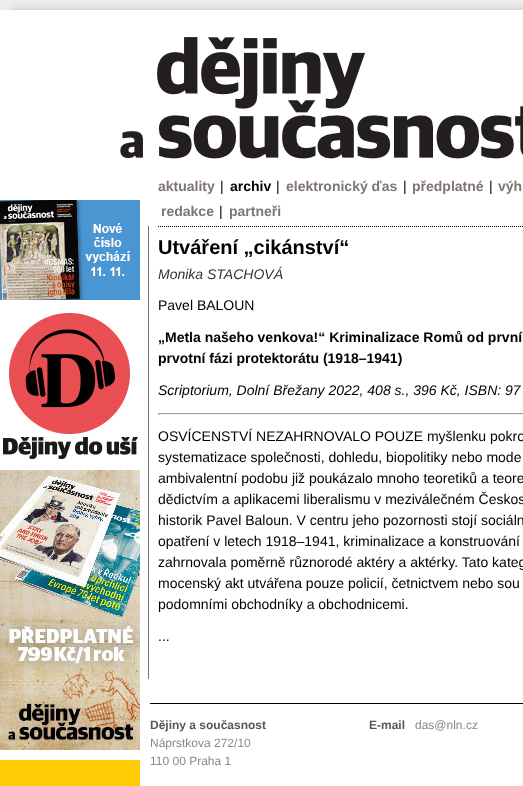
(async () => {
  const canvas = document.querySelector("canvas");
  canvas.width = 523;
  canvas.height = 786;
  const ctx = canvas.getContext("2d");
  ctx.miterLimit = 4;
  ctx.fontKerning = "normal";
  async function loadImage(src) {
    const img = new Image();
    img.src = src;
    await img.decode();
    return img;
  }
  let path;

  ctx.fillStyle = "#ffffff";
  ctx.fillRect(0, 0, 523, 786);
  ctx.drawImage(await loadImage("img/1.png"), 0, 0, 523, 10);
  ctx.drawImage(await loadImage("img/2.png"), 120, 37, 403, 122);
  ctx.drawImage(await loadImage("img/3.png"), 0, 200, 140, 100);
  ctx.drawImage(await loadImage("img/4.png"), 0, 310, 140, 150);
  ctx.drawImage(await loadImage("img/5.png"), 0, 470, 140, 280);
  ctx.fillStyle = "#ffcb05";
  ctx.fillRect(0, 760, 140, 26);
  ctx.fillStyle = "#757577";
  ctx.fillRect(148, 226, 1, 453);
  path = new Path2D("M158 226.5H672");
  ctx.strokeStyle = "#000000";
  ctx.setLineDash([1, 1]);
  ctx.stroke(path);
  for (const [x, y, w, h, color] of [
    [158, 413, 365, 1, "#9f9f9f"],
    [158, 414, 365, 1, "#eeeeee"],
    [158, 413, 1, 2, "#9f9f9f"],
    [150, 703, 373, 1, "#000000"],
  ]) {
    ctx.fillStyle = color;
    ctx.fillRect(x, y, w, h);
  }
  ctx.font = "bold 14px Liberation Sans";
  ctx.fillStyle = "#7f7671";
  ctx.fillText("aktuality", 158, 191);
  ctx.font = "14px Liberation Sans";
  ctx.fillStyle = "#000000";
  ctx.fillText("|", 220, 191);
  ctx.font = "bold 14px Liberation Sans";
  ctx.fillText("archiv", 230, 191);
  ctx.font = "14px Liberation Sans";
  ctx.fillText("|", 276, 191);
  ctx.font = "bold 14px Liberation Sans";
  ctx.fillStyle = "#7f7671";
  ctx.fillText("elektronický ďas", 286, 191);
  ctx.font = "14px Liberation Sans";
  ctx.fillStyle = "#000000";
  ctx.fillText("|", 403, 191);
  ctx.font = "bold 14px Liberation Sans";
  ctx.fillStyle = "#7f7671";
  ctx.fillText("předplatné", 412, 191);
  ctx.font = "14px Liberation Sans";
  ctx.fillStyle = "#000000";
  ctx.fillText("|", 489, 191);
  ctx.font = "bold 14px Liberation Sans";
  ctx.fillStyle = "#7f7671";
  ctx.fillText("výh", 498, 191);
  ctx.fillText("redakce", 161, 216);
  ctx.font = "14px Liberation Sans";
  ctx.fillStyle = "#000000";
  ctx.fillText("|", 219, 216);
  ctx.font = "bold 14px Liberation Sans";
  ctx.fillStyle = "#7f7671";
  ctx.fillText("partneři", 229, 216);
  ctx.font = "bold 20px Liberation Sans";
  ctx.fillStyle = "#000000";
  ctx.fillText("Utváření „cikánství“", 158, 254);
  ctx.font = "italic 14px Liberation Sans";
  ctx.fillStyle = "#2e3436";
  ctx.fillText("Monika STACHOVÁ", 158, 279);
  ctx.font = "14px Liberation Sans";
  ctx.fillStyle = "#000000";
  ctx.fillText("Pavel BALOUN", 158, 310);
  ctx.font = "bold 14px Liberation Sans";
  ctx.fillText("„Metla našeho venkova!“ Kriminalizace Romů od první", 158, 342);
  ctx.fillText("prvotní fázi protektorátu (1918–1941)", 158, 363);
  ctx.font = "italic 14px Liberation Sans";
  ctx.fillText("Scriptorium, Dolní Břežany 2022, 408 s., 396 Kč, ISBN: 97", 158, 395);
  ctx.font = "14px Liberation Sans";
  for (const [text, x, y] of [
    ["OSVÍCENSTVÍ NEZAHRNOVALO POUZE myšlenku pokro", 158, 441],
    ["systematizace společnosti, dohledu, biopolitiky nebo mode", 158, 462],
    ["ambivalentní podobu již poukázalo mnoho teoretiků a teore", 158, 483],
    ["dědictvím a aplikacemi liberalismu v meziválečném Českos", 158, 504],
    ["historik Pavel Baloun. V centru jeho pozornosti stojí sociáln", 158, 525],
    ["opatření v letech 1918–1941, kriminalizace a konstruování", 158, 546],
    ["zahrnovala poměrně různorodé aktéry a aktérky. Tato kateg", 158, 567],
    ["mocenský akt utvářena pouze policií, četnictvem nebo sou", 158, 588],
    ["podomními obchodníky a obchodnicemi.", 158, 609],
    ["...", 158, 641],
  ]) {
    ctx.fillText(text, x, y);
  }
  ctx.font = "bold 12px Liberation Sans";
  ctx.fillStyle = "#555753";
  ctx.fillText("Dějiny a současnost", 150, 729);
  ctx.font = "12px Liberation Sans";
  ctx.fillStyle = "#888a85";
  ctx.fillText("Náprstkova 272/10", 150, 747);
  ctx.fillText("110 00 Praha 1", 150, 765);
  ctx.font = "bold 12px Liberation Sans";
  ctx.fillStyle = "#555753";
  ctx.fillText("E-mail", 369, 729);
  ctx.font = "12px Liberation Sans";
  ctx.fillStyle = "#888a85";
  ctx.fillText("das@nln.cz", 415, 729);
})();
